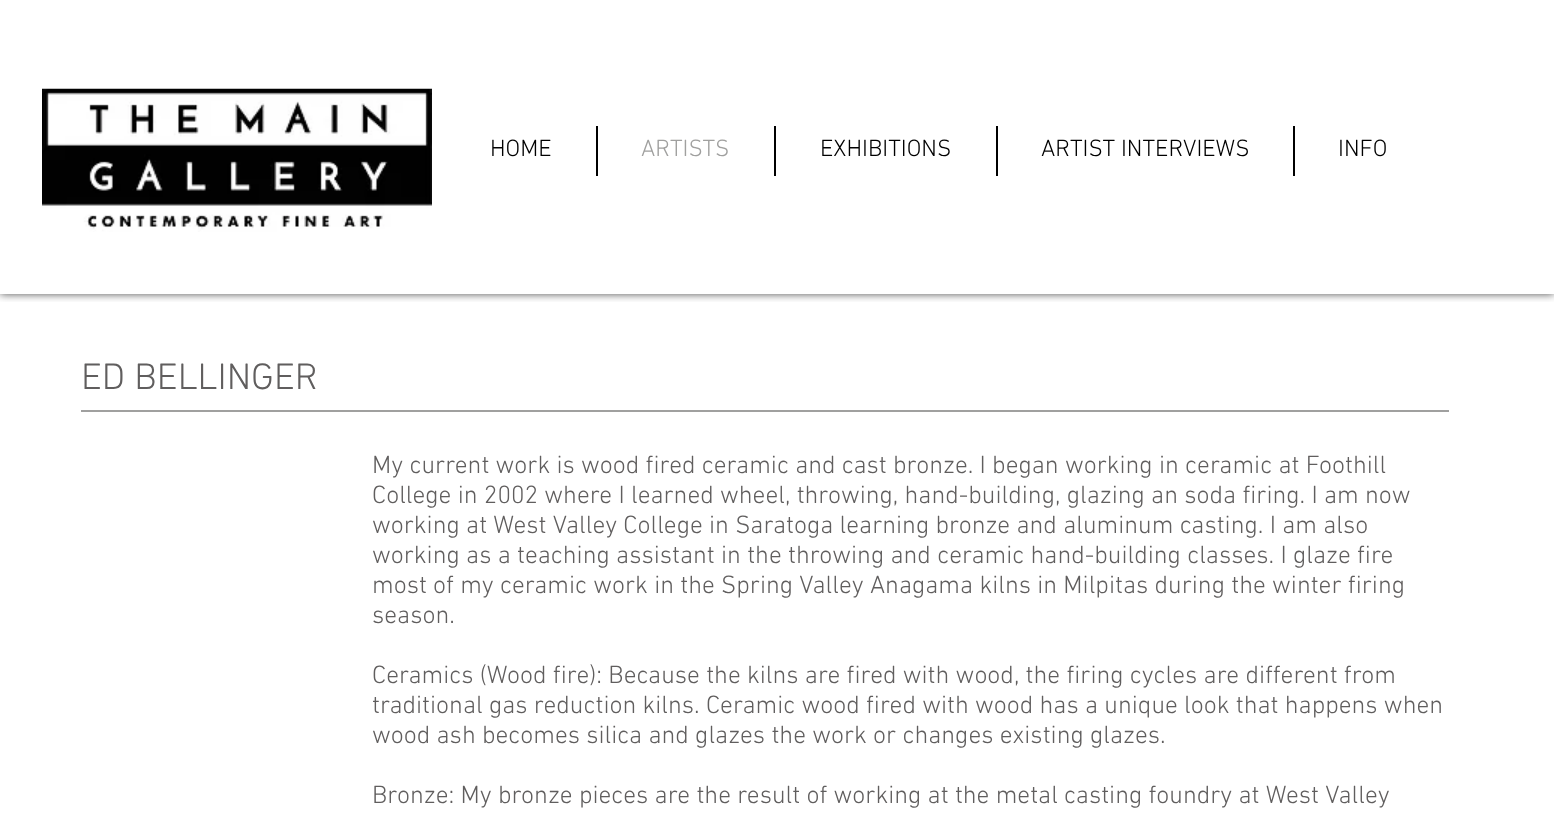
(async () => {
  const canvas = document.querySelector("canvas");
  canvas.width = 1554;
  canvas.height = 814;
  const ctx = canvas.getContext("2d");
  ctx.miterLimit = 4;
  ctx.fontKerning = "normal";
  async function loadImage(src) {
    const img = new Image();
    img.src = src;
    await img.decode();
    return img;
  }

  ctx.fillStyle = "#ffffff";
  ctx.fillRect(0, 0, 1554, 814);
  ctx.save();
  ctx.beginPath();
  ctx.rect(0, 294, 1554, 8);
  ctx.clip();
  ctx.fillStyle = "rgba(0, 0, 0, 0.7)";
  ctx.filter = "blur(4px)";
  ctx.beginPath();
  ctx.rect(0, 0, 1554, 294);
  ctx.fill();
  ctx.filter = "none";
  ctx.restore();
  ctx.drawImage(await loadImage("img/1.png"), 42, 88, 390, 144);
  for (const [x, y, w, h, color] of [
    [596, 126, 2, 50, "#000000"],
    [774, 126, 2, 50, "#000000"],
    [996, 126, 2, 50, "#000000"],
    [1293, 126, 2, 50, "#000000"],
    [81, 410, 1368, 2, "#a0a09f"],
  ]) {
    ctx.fillStyle = color;
    ctx.fillRect(x, y, w, h);
  }
  ctx.font = "300 24px 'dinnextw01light'";
  ctx.fillStyle = "#000000";
  ctx.fillText("HOME", 490, 156);
  ctx.fillStyle = "#a0a09f";
  ctx.fillText("ARTISTS", 641, 156);
  ctx.fillStyle = "#000000";
  for (const [text, x, y] of [
    ["EXHIBITIONS", 820, 156],
    ["ARTIST INTERVIEWS", 1041, 156],
    ["INFO", 1338, 156],
  ]) {
    ctx.fillText(text, x, y);
  }
  ctx.font = "300 37.5px 'dinnextw01light'";
  ctx.fillStyle = "#605e5e";
  ctx.fillText("ED BELLINGER", 81, 389);
  ctx.font = "300 25.5px 'dinnextw01light'";
  for (const [text, x, y] of [
    ["My current work is wood fired ceramic and cast bronze. I began working in ceramic at Foothill", 372, 473],
    ["College in 2002 where I learned wheel, throwing, hand-building, glazing an soda firing. I am now", 372, 503],
    ["working at West Valley College in Saratoga learning bronze and aluminum casting. I am also", 372, 533],
    ["working as a teaching assistant in the throwing and ceramic hand-building classes. I glaze fire", 372, 563],
    ["most of my ceramic work in the Spring Valley Anagama kilns in Milpitas during the winter firing", 372, 593],
    ["season.", 372, 623],
    ["Ceramics (Wood fire): Because the kilns are fired with wood, the firing cycles are different from", 372, 683],
    ["traditional gas reduction kilns. Ceramic wood fired with wood has a unique look that happens when", 372, 713],
    ["wood ash becomes silica and glazes the work or changes existing glazes.", 372, 743],
    ["Bronze: My bronze pieces are the result of working at the metal casting foundry at West Valley", 372, 803],
  ]) {
    ctx.fillText(text, x, y);
  }
})();
